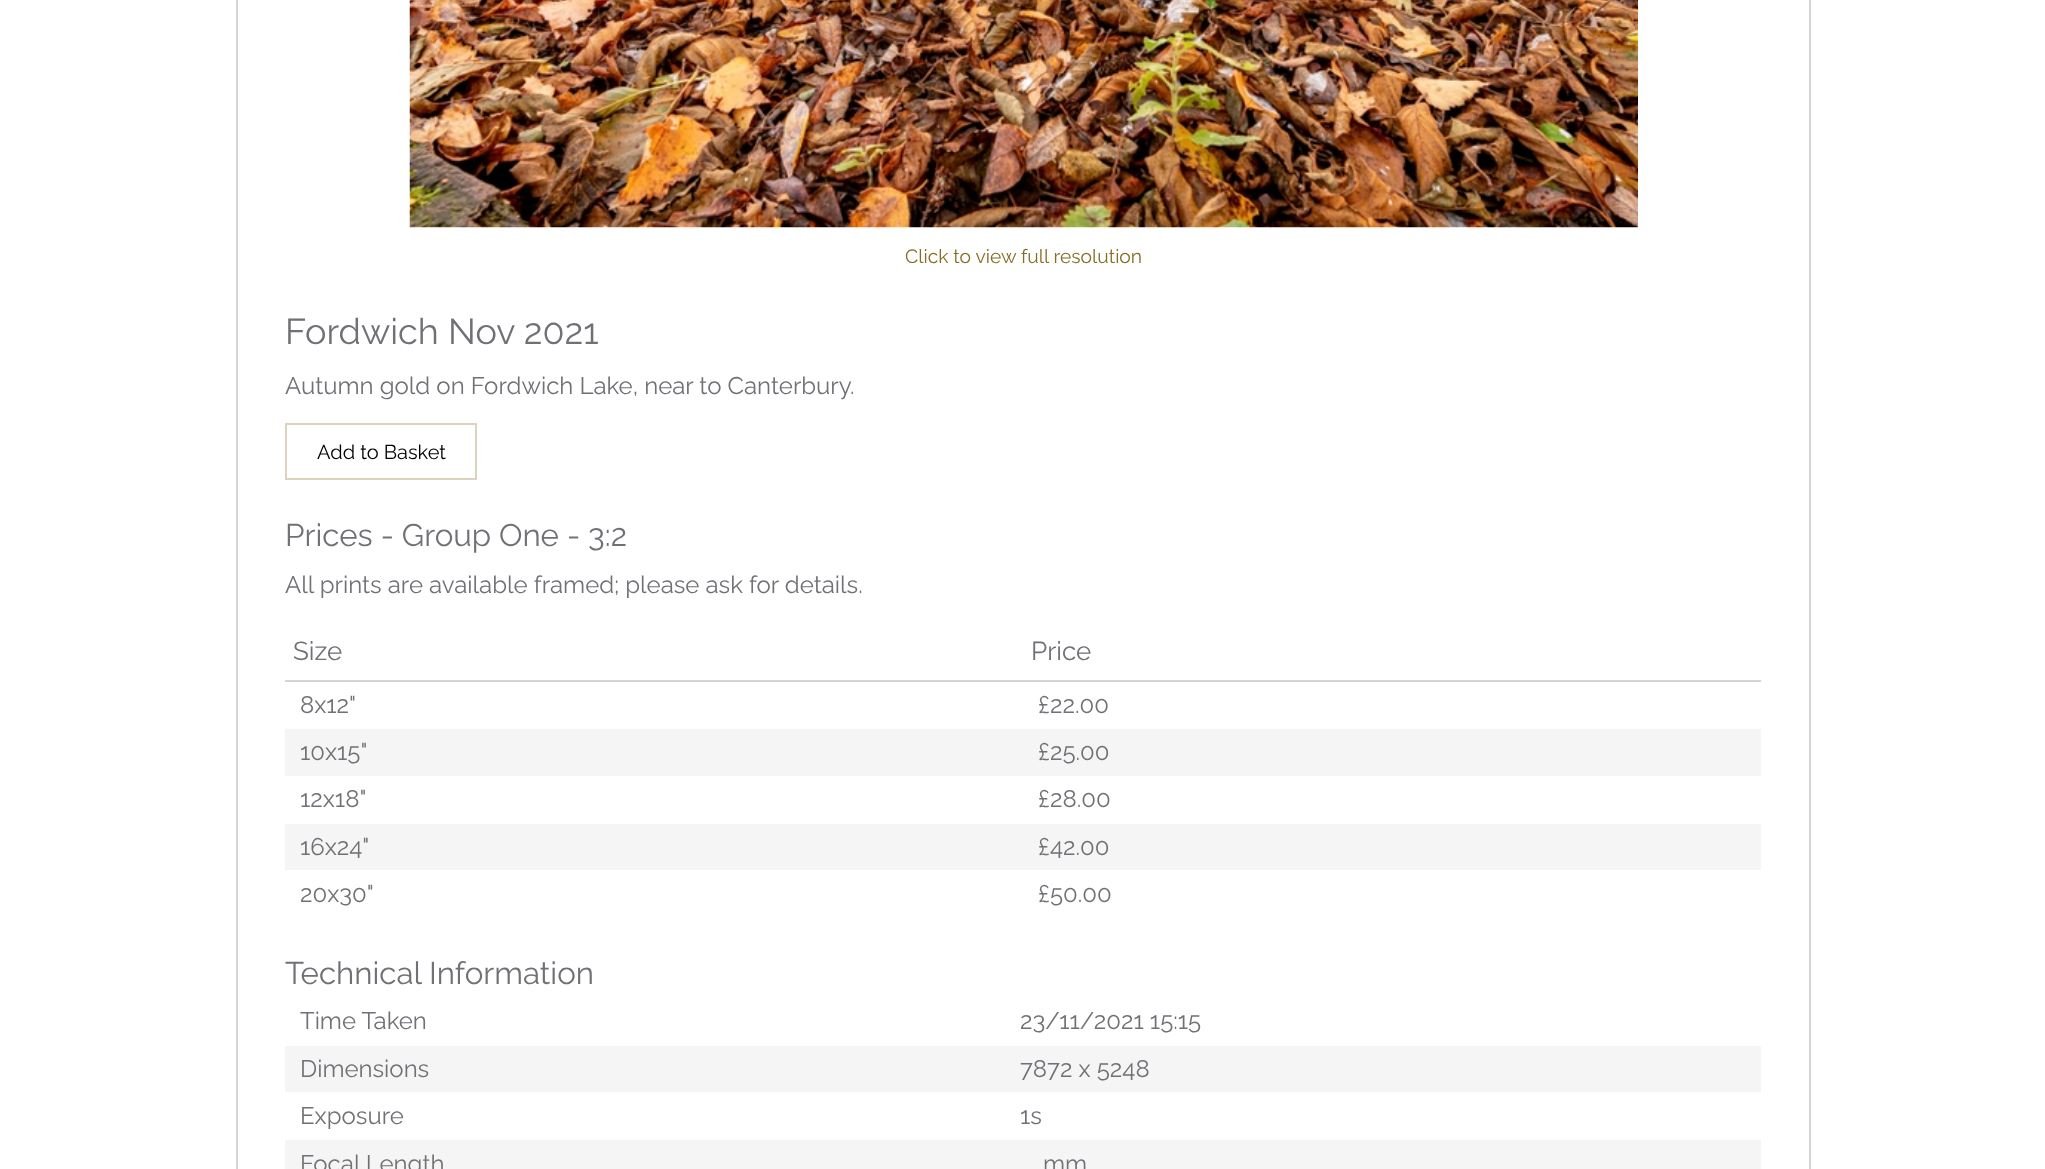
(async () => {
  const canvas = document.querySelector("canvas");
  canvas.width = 2045;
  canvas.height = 1169;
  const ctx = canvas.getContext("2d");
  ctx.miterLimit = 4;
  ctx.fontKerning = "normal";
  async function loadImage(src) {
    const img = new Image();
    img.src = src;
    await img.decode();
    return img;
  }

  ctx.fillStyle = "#ffffff";
  ctx.fillRect(0, 0, 2045, 1169);
  ctx.fillStyle = "#d4d4d6";
  ctx.fillRect(1809, 0, 2, 1169);
  ctx.fillRect(236, 0, 2, 1169);
  ctx.drawImage(await loadImage("img/1.png"), 409, 0, 1229, 228);
  ctx.strokeStyle = "#dbd3bd";
  ctx.lineWidth = 2;
  ctx.strokeRect(286, 424, 190, 55);
  for (const [x, y, w, h, color] of [
    [285, 680, 1476, 2, "#d4d4d6"],
    [285, 729, 1476, 47, "#f5f5f5"],
    [285, 824, 1476, 46, "#f5f5f5"],
    [285, 1046, 1476, 46, "#f5f5f5"],
    [285, 1140, 1476, 29, "#f5f5f5"],
  ]) {
    ctx.fillStyle = color;
    ctx.fillRect(x, y, w, h);
  }
  ctx.font = "100 19.25px Raleway";
  ctx.fillStyle = "#866d24";
  ctx.fillText("Click to view full resolution", 905, 263);
  ctx.font = "100 36px Raleway";
  ctx.fillStyle = "#707176";
  ctx.fillText("Fordwich Nov 2021", 285, 344);
  ctx.font = "100 24px Raleway";
  ctx.fillText("Autumn gold on Fordwich Lake, near to Canterbury.", 285, 394);
  ctx.font = "100 20px Raleway";
  ctx.fillStyle = "#000000";
  ctx.fillText("Add to Basket", 317, 459);
  ctx.font = "100 31.25px Raleway";
  ctx.fillStyle = "#707176";
  ctx.fillText("Prices - Group One - 3:2", 285, 546);
  ctx.font = "100 24px Raleway";
  ctx.fillText("All prints are available framed; please ask for details.", 285, 593);
  ctx.font = "100 26px Raleway";
  ctx.fillText("Size", 293, 660);
  ctx.fillText("Price", 1031, 660);
  ctx.font = "100 24px Raleway";
  for (const [text, x, y] of [
    ["8x12\"", 300, 713],
    ["£22.00", 1038, 713],
    ["10x15\"", 300, 760],
    ["£25.00", 1038, 760],
    ["12x18\"", 300, 807],
    ["£28.00", 1038, 807],
    ["16x24\"", 300, 855],
    ["£42.00", 1038, 855],
    ["20x30\"", 300, 902],
    ["£50.00", 1038, 902],
  ]) {
    ctx.fillText(text, x, y);
  }
  ctx.font = "100 31.25px Raleway";
  ctx.fillText("Technical Information", 285, 984);
  ctx.font = "100 24px Raleway";
  for (const [text, x, y] of [
    ["Time Taken", 300, 1029],
    ["23/11/2021 15:15", 1020, 1029],
    ["Dimensions", 300, 1077],
    ["7872 x 5248", 1020, 1077],
    ["Exposure", 300, 1124],
    ["1s", 1020, 1124],
    ["Focal Length", 300, 1172],
    ["mm", 1043, 1172],
  ]) {
    ctx.fillText(text, x, y);
  }
})();
